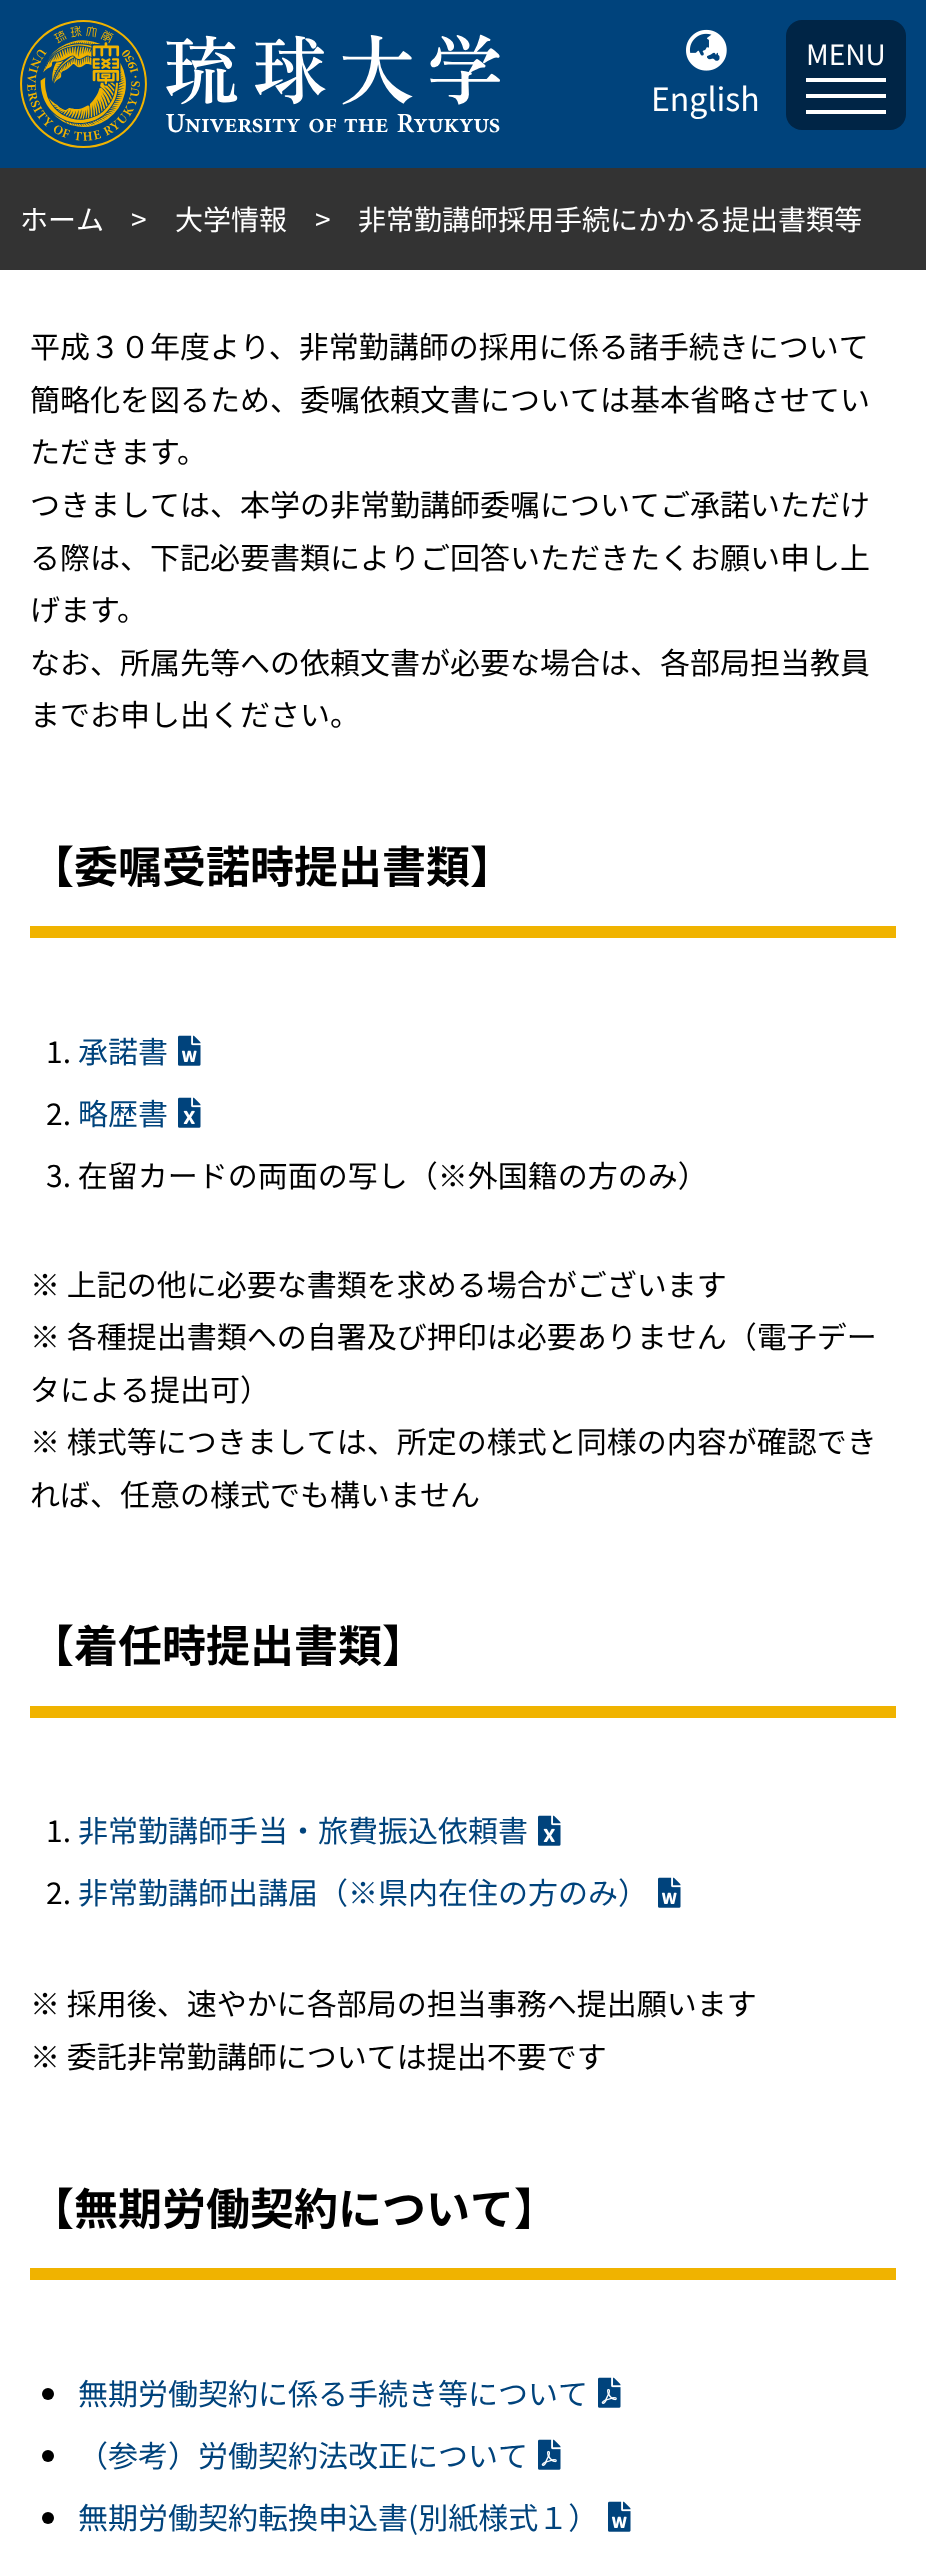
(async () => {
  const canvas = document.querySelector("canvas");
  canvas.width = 926;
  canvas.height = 2552;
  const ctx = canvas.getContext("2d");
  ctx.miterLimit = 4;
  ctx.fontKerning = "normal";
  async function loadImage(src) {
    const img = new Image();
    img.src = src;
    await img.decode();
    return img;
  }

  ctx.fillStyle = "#ffffff";
  ctx.fillRect(0, 0, 926, 2552);
  ctx.fillStyle = "#00437c";
  ctx.fillRect(0, 0, 926, 168);
  ctx.drawImage(await loadImage("img/1.png"), 20, 20, 480, 128);
  ctx.fillStyle = "#002546";
  ctx.beginPath();
  ctx.roundRect(786, 20, 120, 110, 16);
  ctx.fill();
  for (const [x, y, w, h, color] of [
    [806, 78, 80, 4, "#ffffff"],
    [806, 110, 80, 4, "#ffffff"],
    [806, 94, 80, 4, "#ffffff"],
  ]) {
    ctx.fillStyle = color;
    ctx.fillRect(x, y, w, h);
  }
  ctx.drawImage(await loadImage("img/2.png"), 686, 29, 41, 42);
  ctx.fillStyle = "#333333";
  ctx.fillRect(0, 168, 926, 102);
  ctx.fillStyle = "#f0b300";
  ctx.fillRect(30, 926, 866, 12);
  ctx.drawImage(await loadImage("img/3.png"), 178, 1035, 23, 31);
  ctx.drawImage(await loadImage("img/4.png"), 178, 1097, 23, 31);
  ctx.fillRect(30, 1706, 866, 12);
  ctx.drawImage(await loadImage("img/4.png"), 538, 1815, 23, 31);
  ctx.drawImage(await loadImage("img/3.png"), 658, 1877, 23, 31);
  ctx.fillRect(30, 2268, 866, 12);
  ctx.fillStyle = "#000000";
  ctx.beginPath();
  ctx.arc(48, 2394, 6, 0, Math.PI * 2);
  ctx.fill();
  ctx.drawImage(await loadImage("img/5.png"), 598, 2377, 23, 31);
  ctx.beginPath();
  ctx.arc(48, 2456, 6, 0, Math.PI * 2);
  ctx.fill();
  ctx.drawImage(await loadImage("img/5.png"), 538, 2439, 23, 31);
  ctx.beginPath();
  ctx.arc(48, 2518, 6, 0, Math.PI * 2);
  ctx.fill();
  ctx.drawImage(await loadImage("img/3.png"), 608, 2501, 23, 31);
  ctx.font = "28px Noto Sans JP";
  ctx.fillStyle = "#ffffff";
  ctx.fillText("MENU", 806, 65);
  ctx.font = "32px Noto Sans JP";
  ctx.fillText("English", 651, 111);
  ctx.font = "28px Noto Sans JP";
  for (const [text, x, y] of [
    ["ホーム", 20, 230],
    [">", 131, 230],
    ["大学情報", 175, 230],
    [">", 315, 230],
    ["非常勤講師採用手続にかかる提出書類等", 358, 230],
  ]) {
    ctx.fillText(text, x, y);
  }
  ctx.font = "30px Noto Sans JP";
  ctx.fillStyle = "#000000";
  for (const [text, x, y] of [
    ["平成３０年度より、非常勤講師の採用に係る諸手続きについて", 30, 358],
    ["簡略化を図るため、委嘱依頼文書については基本省略させてい", 30, 411],
    ["ただきます。", 30, 463],
    ["つきましては、本学の非常勤講師委嘱についてご承諾いただけ", 30, 516],
    ["る際は、下記必要書類によりご回答いただきたくお願い申し上", 30, 569],
    ["げます。", 30, 621],
    ["なお、所属先等への依頼文書が必要な場合は、各部局担当教員", 30, 674],
    ["までお申し出ください。", 30, 726],
  ]) {
    ctx.fillText(text, x, y);
  }
  ctx.font = "bold 44px Noto Sans JP";
  ctx.fillText("【委嘱受諾時提出書類】", 30, 883);
  ctx.font = "30px Noto Sans JP";
  ctx.fillText("1.", 46, 1063);
  ctx.fillStyle = "#00437c";
  ctx.fillText("承諾書", 78, 1063);
  ctx.fillStyle = "#000000";
  ctx.fillText("2.", 46, 1125);
  ctx.fillStyle = "#00437c";
  ctx.fillText("略歴書", 78, 1125);
  ctx.fillStyle = "#000000";
  for (const [text, x, y] of [
    ["3. 在留カードの両面の写し（※外国籍の方のみ）", 46, 1187],
    ["※ 上記の他に必要な書類を求める場合がございます", 30, 1296],
    ["※ 各種提出書類への自署及び押印は必要ありません（電子デー", 30, 1348],
    ["タによる提出可）", 30, 1401],
    ["※ 様式等につきましては、所定の様式と同様の内容が確認でき", 30, 1453],
    ["れば、任意の様式でも構いません", 30, 1506],
  ]) {
    ctx.fillText(text, x, y);
  }
  ctx.font = "bold 44px Noto Sans JP";
  ctx.fillText("【着任時提出書類】", 30, 1662);
  ctx.font = "30px Noto Sans JP";
  ctx.fillText("1.", 46, 1842);
  ctx.fillStyle = "#00437c";
  ctx.fillText("非常勤講師手当・旅費振込依頼書", 78, 1842);
  ctx.fillStyle = "#000000";
  ctx.fillText("2.", 46, 1904);
  ctx.fillStyle = "#00437c";
  ctx.fillText("非常勤講師出講届（※県内在住の方のみ）", 78, 1904);
  ctx.fillStyle = "#000000";
  ctx.fillText("※ 採用後、速やかに各部局の担当事務へ提出願います", 30, 2015);
  ctx.fillText("※ 委託非常勤講師については提出不要です", 30, 2068);
  ctx.font = "bold 44px Noto Sans JP";
  ctx.fillText("【無期労働契約について】", 30, 2225);
  ctx.font = "30px Noto Sans JP";
  ctx.fillStyle = "#00437c";
  for (const [text, x, y] of [
    ["無期労働契約に係る手続き等について", 78, 2405],
    ["（参考）労働契約法改正について", 78, 2467],
    ["無期労働契約転換申込書(別紙様式１）", 78, 2529],
  ]) {
    ctx.fillText(text, x, y);
  }
})();
